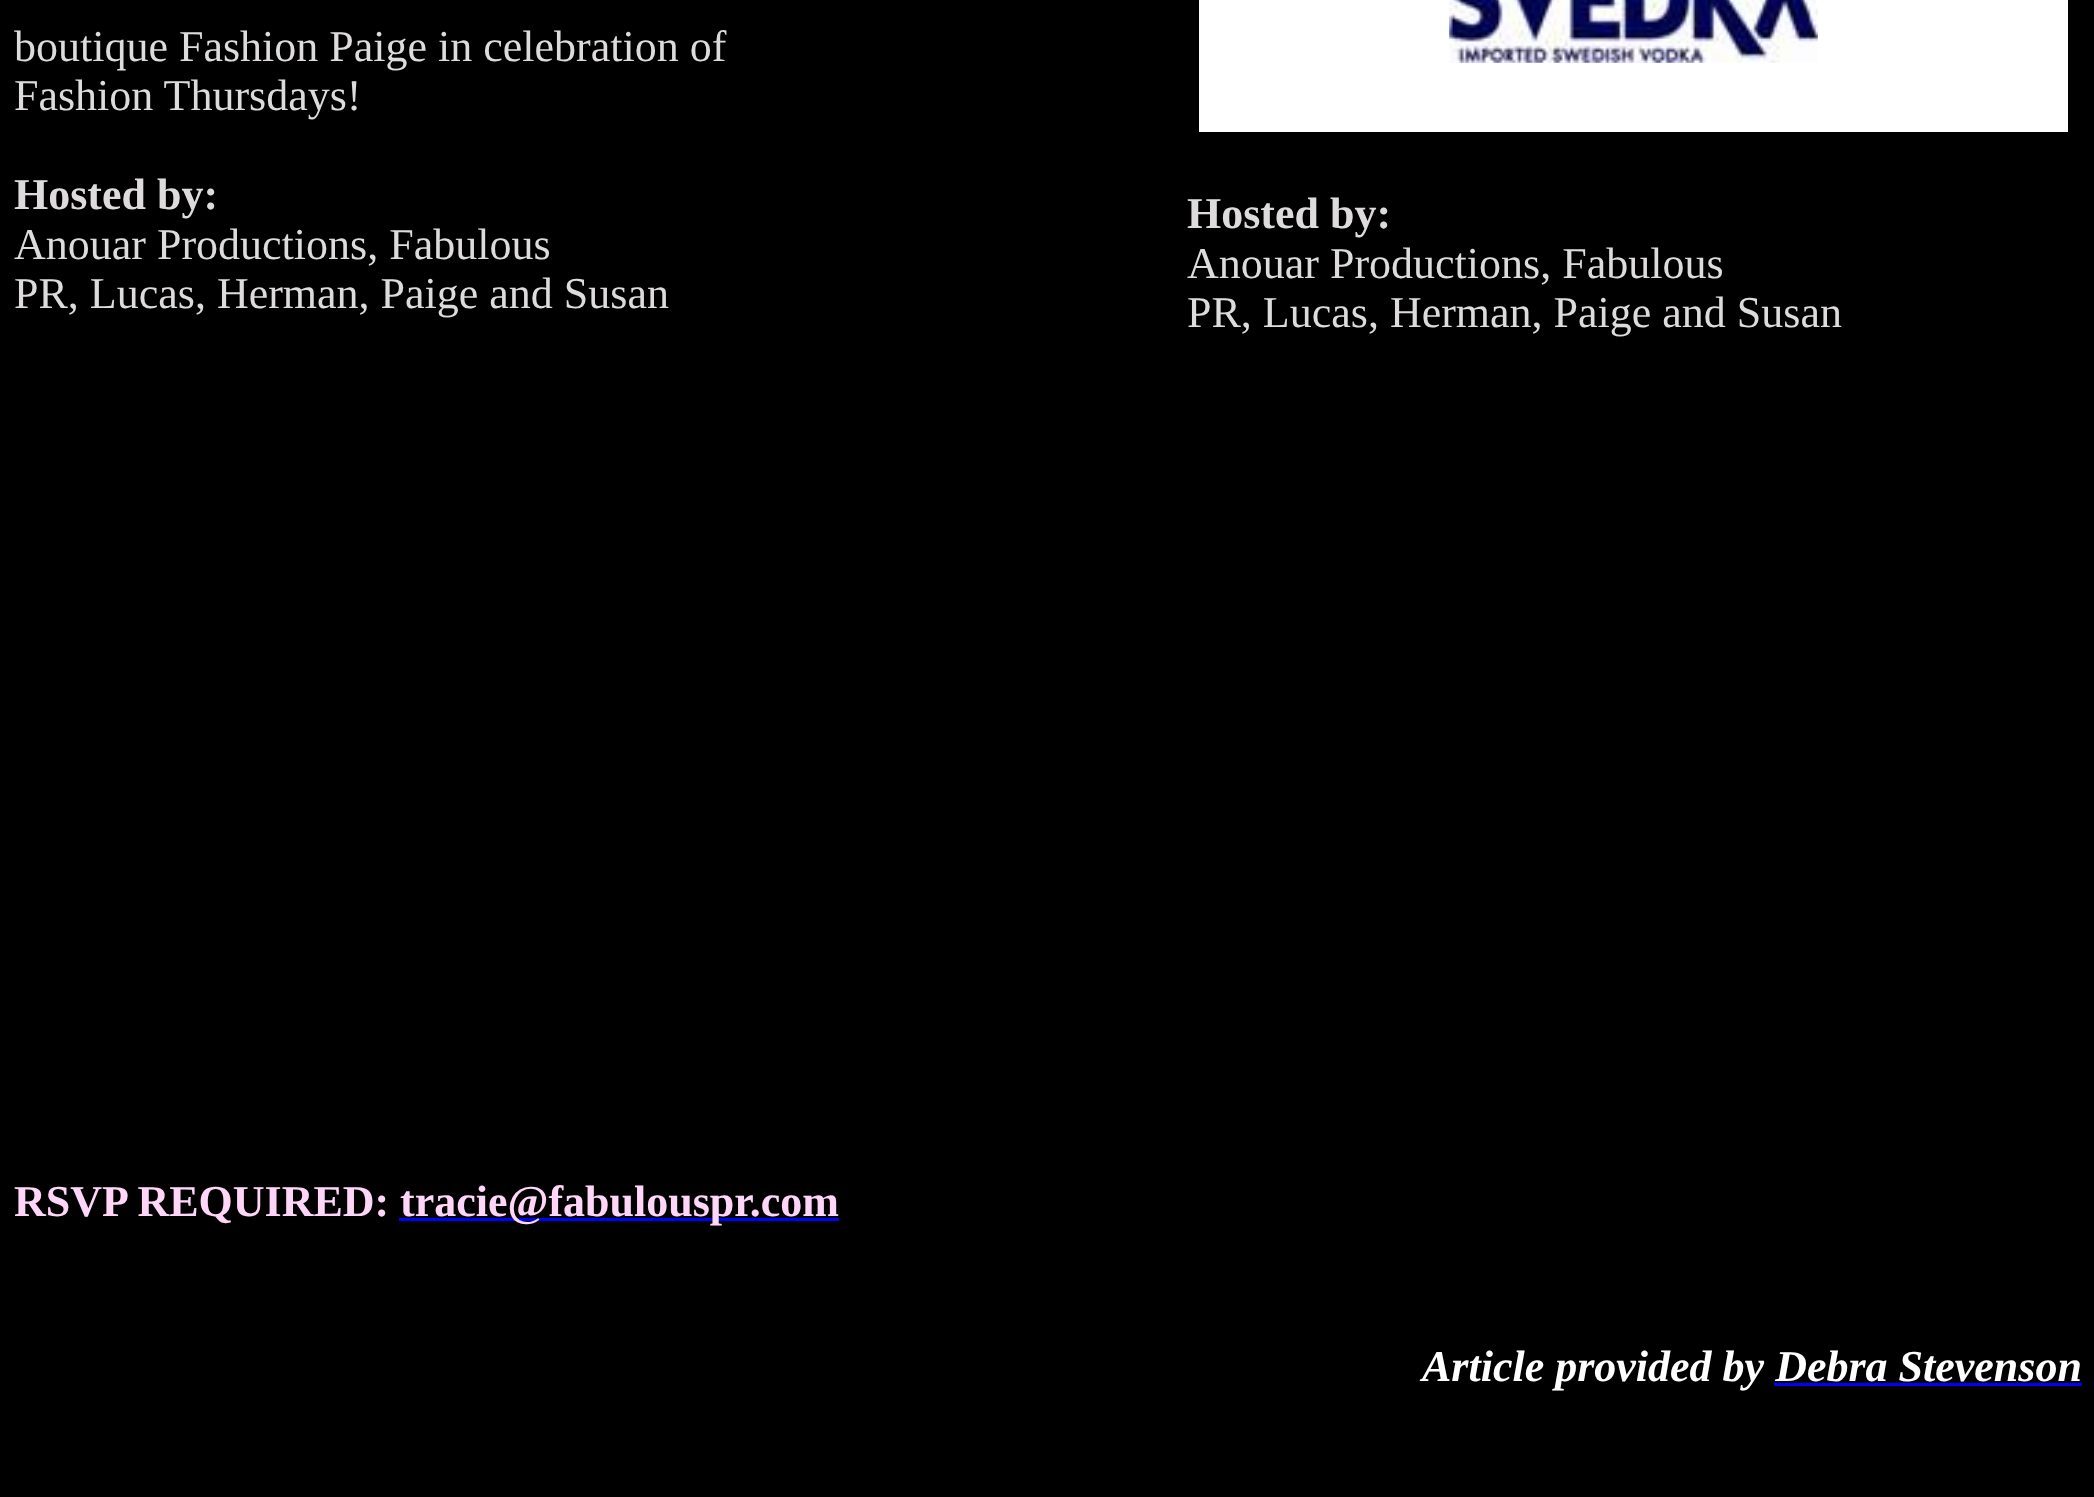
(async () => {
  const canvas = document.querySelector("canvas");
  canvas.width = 2094;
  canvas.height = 1497;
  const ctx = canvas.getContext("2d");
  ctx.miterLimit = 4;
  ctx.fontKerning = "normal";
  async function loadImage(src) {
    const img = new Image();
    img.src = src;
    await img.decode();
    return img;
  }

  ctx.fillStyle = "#000000";
  ctx.fillRect(0, 0, 2094, 1497);
  ctx.fillStyle = "#0000ff";
  ctx.fillRect(399, 1218, 440, 3);
  ctx.fillStyle = "#ffffff";
  ctx.fillRect(1199, 0, 869, 132);
  ctx.drawImage(await loadImage("img/1.png"), 1449, 0, 369, 63);
  ctx.font = "44px Liberation Serif";
  ctx.fillStyle = "#dddbdc";
  ctx.fillText("boutique Fashion Paige in celebration of", 14, 61);
  ctx.fillText("Fashion Thursdays!", 14, 110);
  ctx.font = "bold 44px Liberation Serif";
  ctx.fillText("Hosted by:", 14, 209);
  ctx.font = "44px Liberation Serif";
  ctx.fillText("Anouar Productions, Fabulous", 14, 259);
  ctx.fillText("PR, Lucas, Herman, Paige and Susan", 14, 308);
  ctx.font = "bold 44px Liberation Serif";
  ctx.fillStyle = "#ffd5f8";
  ctx.fillText("RSVP REQUIRED:", 14, 1216);
  ctx.fillText("tracie@fabulouspr.com", 400, 1216);
  ctx.fillStyle = "#dddbdc";
  ctx.fillText("Hosted by:", 1187, 228);
  ctx.font = "44px Liberation Serif";
  ctx.fillText("Anouar Productions, Fabulous", 1187, 278);
  ctx.fillText("PR, Lucas, Herman, Paige and Susan", 1187, 327);
  ctx.font = "italic bold 44px Liberation Serif";
  ctx.fillStyle = "#ffffff";
  ctx.fillText("Article provided by Debra Stevenson", 1422, 1381);
  ctx.fillStyle = "#0000ff";
  ctx.fillRect(1774, 1383, 308, 3);
})();
